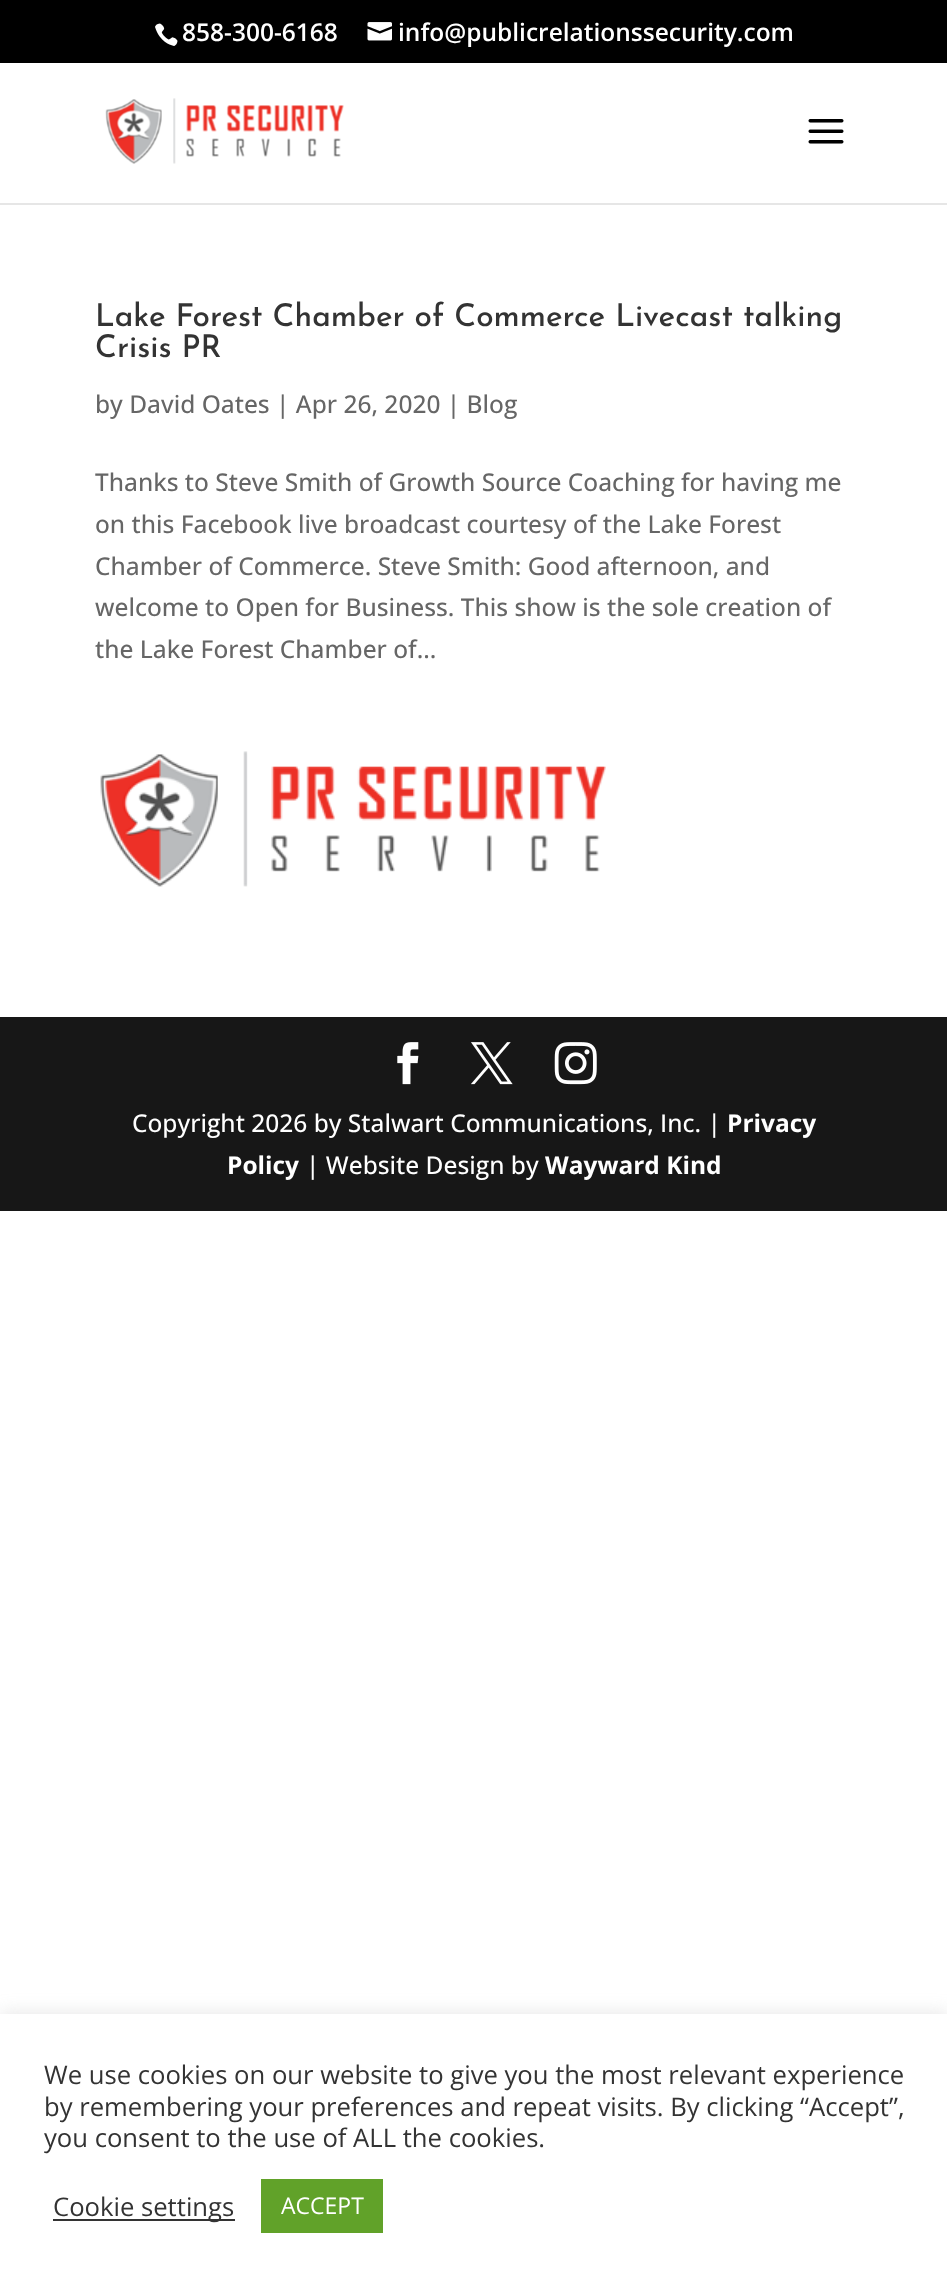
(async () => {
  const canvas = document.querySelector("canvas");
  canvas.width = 947;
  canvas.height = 2284;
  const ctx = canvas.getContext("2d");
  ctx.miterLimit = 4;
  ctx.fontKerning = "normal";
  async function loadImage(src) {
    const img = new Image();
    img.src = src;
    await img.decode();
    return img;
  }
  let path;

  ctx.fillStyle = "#ffffff";
  ctx.fillRect(0, 0, 947, 2284);
  ctx.fillStyle = "#000000";
  ctx.fillRect(0, 0, 947, 63);
  ctx.drawImage(await loadImage("img/1.png"), 155, 23, 23, 23);
  ctx.drawImage(await loadImage("img/2.png"), 367, 22, 25, 19);
  ctx.fillStyle = "#e6e6e6";
  path = new Path2D("M0 203V205H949V65H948V203Z");
  ctx.fill(path);
  ctx.drawImage(await loadImage("img/3.png"), 105, 98, 239, 66);
  ctx.drawImage(await loadImage("img/4.png"), 808, 119, 36, 25);
  ctx.drawImage(await loadImage("img/5.png"), 100, 751, 506, 136);
  ctx.fillStyle = "#171717";
  ctx.fillRect(0, 1017, 947, 194);
  ctx.drawImage(await loadImage("img/6.png"), 397, 1042, 22, 43);
  ctx.drawImage(await loadImage("img/7.png"), 471, 1042, 42, 43);
  ctx.drawImage(await loadImage("img/8.png"), 554, 1042, 43, 43);
  ctx.fillStyle = "rgba(172, 171, 171, 0.3)";
  ctx.filter = "blur(9px)";
  ctx.beginPath();
  ctx.rect(0, 2013, 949, 271);
  ctx.fill();
  ctx.filter = "none";
  for (const [x, y, w, h, color] of [
    [0, 2014, 947, 270, "#ffffff"],
    [53, 2219, 182, 2, "#333333"],
    [261, 2179, 122, 54, "#61a229"],
  ]) {
    ctx.fillStyle = color;
    ctx.fillRect(x, y, w, h);
  }
  ctx.font = "600 24.5px Open Sans";
  ctx.fillStyle = "#ffffff";
  ctx.fillText("858-300-6168", 182, 41);
  ctx.fillText("info@publicrelationssecurity.com", 398, 41);
  ctx.font = "100 31.5px Josefin Sans";
  ctx.fillStyle = "#333333";
  ctx.fillText("Lake Forest Chamber of Commerce Livecast talking", 95, 326);
  ctx.fillText("Crisis PR", 95, 357);
  ctx.font = "500 24.5px Open Sans";
  ctx.fillStyle = "#666666";
  for (const [text, x, y] of [
    ["by David Oates | Apr 26, 2020 | Blog", 95, 413],
    ["Thanks to Steve Smith of Growth Source Coaching for having me", 95, 491],
    ["on this Facebook live broadcast courtesy of the Lake Forest", 95, 533],
    ["Chamber of Commerce. Steve Smith: Good afternoon, and", 95, 575],
    ["welcome to Open for Business. This show is the sole creation of", 95, 616],
    ["the Lake Forest Chamber of...", 95, 658],
  ]) {
    ctx.fillText(text, x, y);
  }
  ctx.fillStyle = "#ffffff";
  ctx.fillText("Copyright 2026 by Stalwart Communications, Inc. |", 132, 1132);
  ctx.font = "bold 24.5px Open Sans";
  ctx.fillText("Privacy", 727, 1132);
  ctx.fillText("Policy", 227, 1174);
  ctx.font = "500 24.5px Open Sans";
  ctx.fillText("| Website Design by", 306, 1174);
  ctx.font = "bold 24.5px Open Sans";
  ctx.fillText("Wayward Kind", 545, 1174);
  ctx.font = "25.65px Open Sans";
  ctx.fillStyle = "#333333";
  for (const [text, x, y] of [
    ["We use cookies on our website to give you the most relevant experience", 44, 2084],
    ["by remembering your preferences and repeat visits. By clicking “Accept”,", 44, 2116],
    ["you consent to the use of ALL the cookies.", 44, 2147],
    ["Cookie settings", 53, 2216],
  ]) {
    ctx.fillText(text, x, y);
  }
  ctx.font = "23px Open Sans";
  ctx.fillStyle = "#ffffff";
  ctx.fillText("ACCEPT", 281, 2214);
})();
